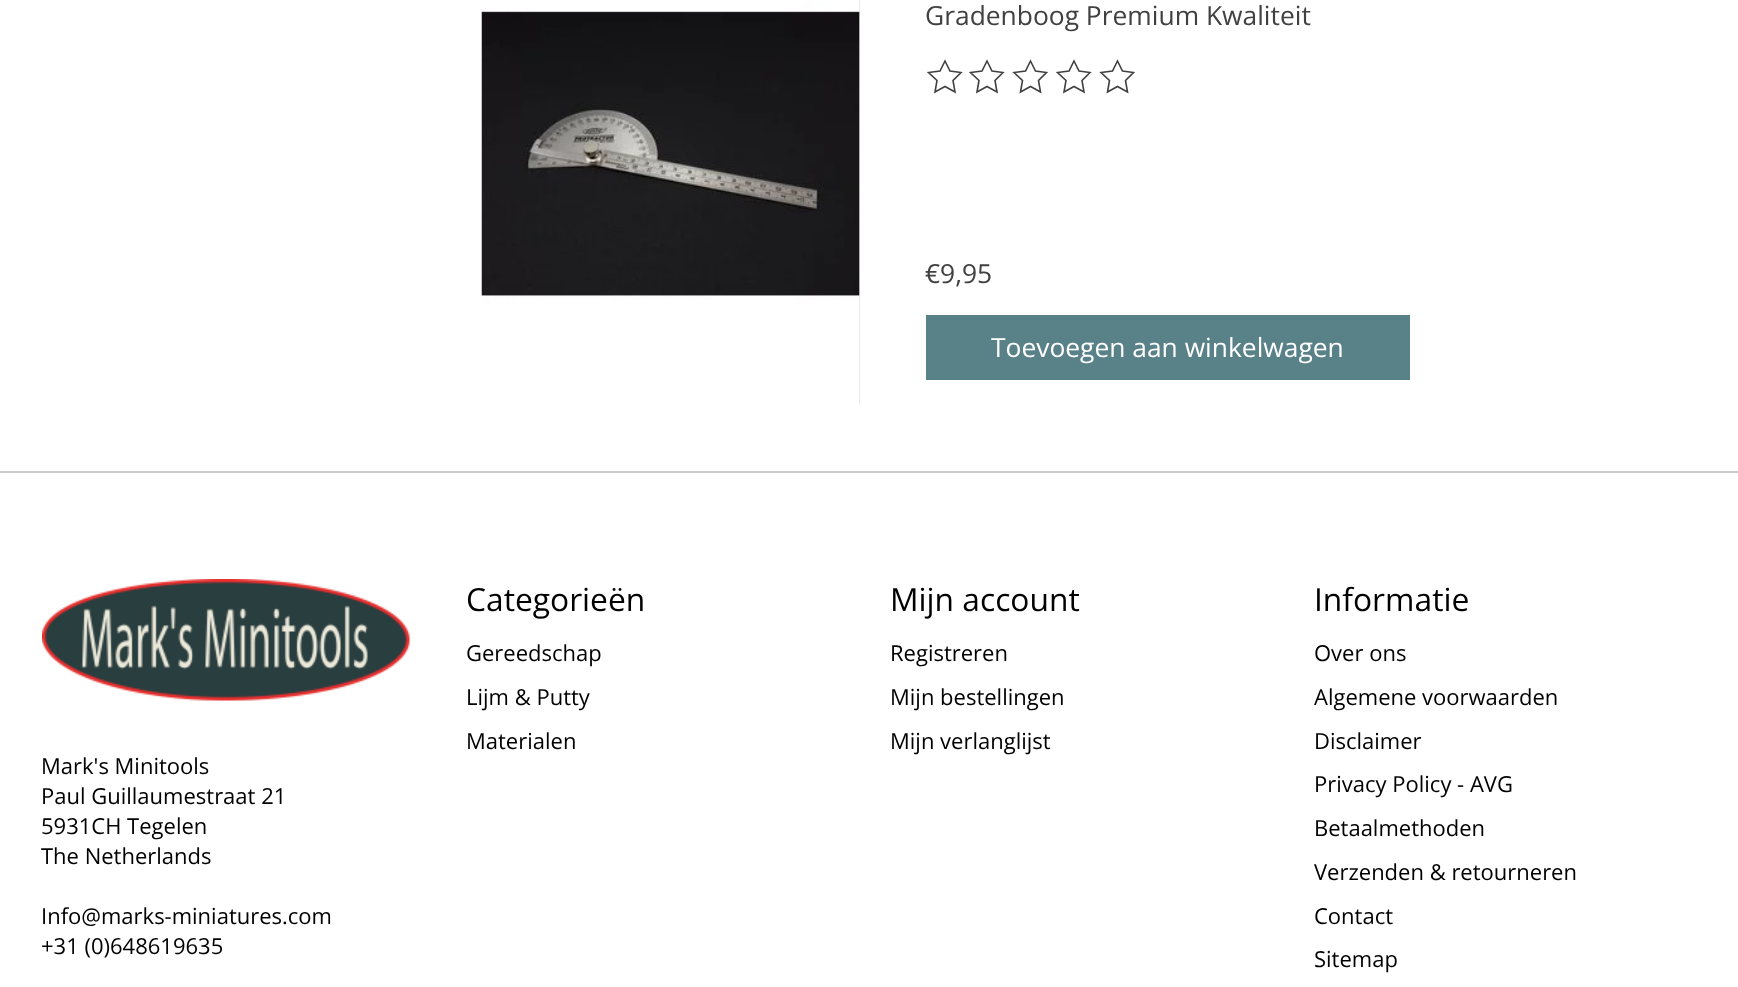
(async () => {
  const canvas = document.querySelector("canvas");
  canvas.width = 1738;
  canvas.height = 987;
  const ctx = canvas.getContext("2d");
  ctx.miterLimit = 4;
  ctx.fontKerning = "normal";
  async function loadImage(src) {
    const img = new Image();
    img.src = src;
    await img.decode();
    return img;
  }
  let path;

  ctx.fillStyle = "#ffffff";
  ctx.fillRect(0, 0, 1738, 987);
  ctx.fillStyle = "#e3e3e3";
  ctx.fillRect(859, 0, 1, 405);
  ctx.drawImage(await loadImage("img/1.png"), 481, 0, 379, 405);
  path = new Path2D("M945 61L950 71L961 72.5L953 80.5L955 92L945 86.5L935 92L937 80.5L928.5 72.5L940 71Z");
  ctx.strokeStyle = "#414141";
  ctx.lineWidth = 1.6;
  ctx.stroke(path);
  path = new Path2D("M987 61L992 71L1003 72.5L995 80.5L997 92L987 86.5L977 92L979 80.5L970.5 72.5L982 71Z");
  ctx.stroke(path);
  path = new Path2D("M1030.5 61L1035.5 71L1046.5 72.5L1038.5 80.5L1040.5 92L1030.5 86.5L1020.5 92L1022.5 80.5L1014 72.5L1025.5 71Z");
  ctx.stroke(path);
  path = new Path2D("M1074 61L1079 71L1090 72.5L1082 80.5L1084 92L1074 86.5L1064 92L1066 80.5L1057.5 72.5L1069 71Z");
  ctx.stroke(path);
  path = new Path2D("M1117.5 61L1122.5 71L1133.5 72.5L1125.5 80.5L1127.5 92L1117.5 86.5L1107.5 92L1109.5 80.5L1101 72.5L1112.5 71Z");
  ctx.stroke(path);
  ctx.fillStyle = "#598188";
  ctx.fillRect(926, 315, 484, 65);
  ctx.fillStyle = "#cccccc";
  ctx.fillRect(0, 471, 1738, 2);
  ctx.drawImage(await loadImage("img/2.png"), 42, 579, 368, 122);
  ctx.font = "26.4px Open Sans";
  ctx.fillStyle = "#414141";
  ctx.fillText("Gradenboog Premium Kwaliteit", 925, 25);
  ctx.fillText("€9,95", 925, 283);
  ctx.fillStyle = "#ffffff";
  ctx.fillText("Toevoegen aan winkelwagen", 991, 357);
  ctx.font = "31.75px Open Sans";
  ctx.fillStyle = "#000000";
  ctx.fillText("Categorieën", 466, 611);
  ctx.font = "22px Open Sans";
  for (const [text, x, y] of [
    ["Gereedschap", 466, 661],
    ["Lijm & Putty", 466, 705],
    ["Materialen", 466, 749],
  ]) {
    ctx.fillText(text, x, y);
  }
  ctx.font = "31.75px Open Sans";
  ctx.fillText("Mijn account", 890, 611);
  ctx.font = "22px Open Sans";
  for (const [text, x, y] of [
    ["Registreren", 890, 661],
    ["Mijn bestellingen", 890, 705],
    ["Mijn verlanglijst", 890, 749],
  ]) {
    ctx.fillText(text, x, y);
  }
  ctx.font = "31.75px Open Sans";
  ctx.fillText("Informatie", 1314, 611);
  ctx.font = "22px Open Sans";
  for (const [text, x, y] of [
    ["Over ons", 1314, 661],
    ["Algemene voorwaarden", 1314, 705],
    ["Disclaimer", 1314, 749],
    ["Privacy Policy - AVG", 1314, 792],
    ["Betaalmethoden", 1314, 836],
    ["Verzenden & retourneren", 1314, 880],
    ["Contact", 1314, 924],
    ["Sitemap", 1314, 967],
    ["Mark's Minitools", 41, 774],
    ["Paul Guillaumestraat 21", 41, 804],
    ["5931CH Tegelen", 41, 834],
    ["The Netherlands", 41, 864],
    ["Info@marks-miniatures.com", 41, 924],
    ["+31 (0)648619635", 41, 954],
  ]) {
    ctx.fillText(text, x, y);
  }
})();
